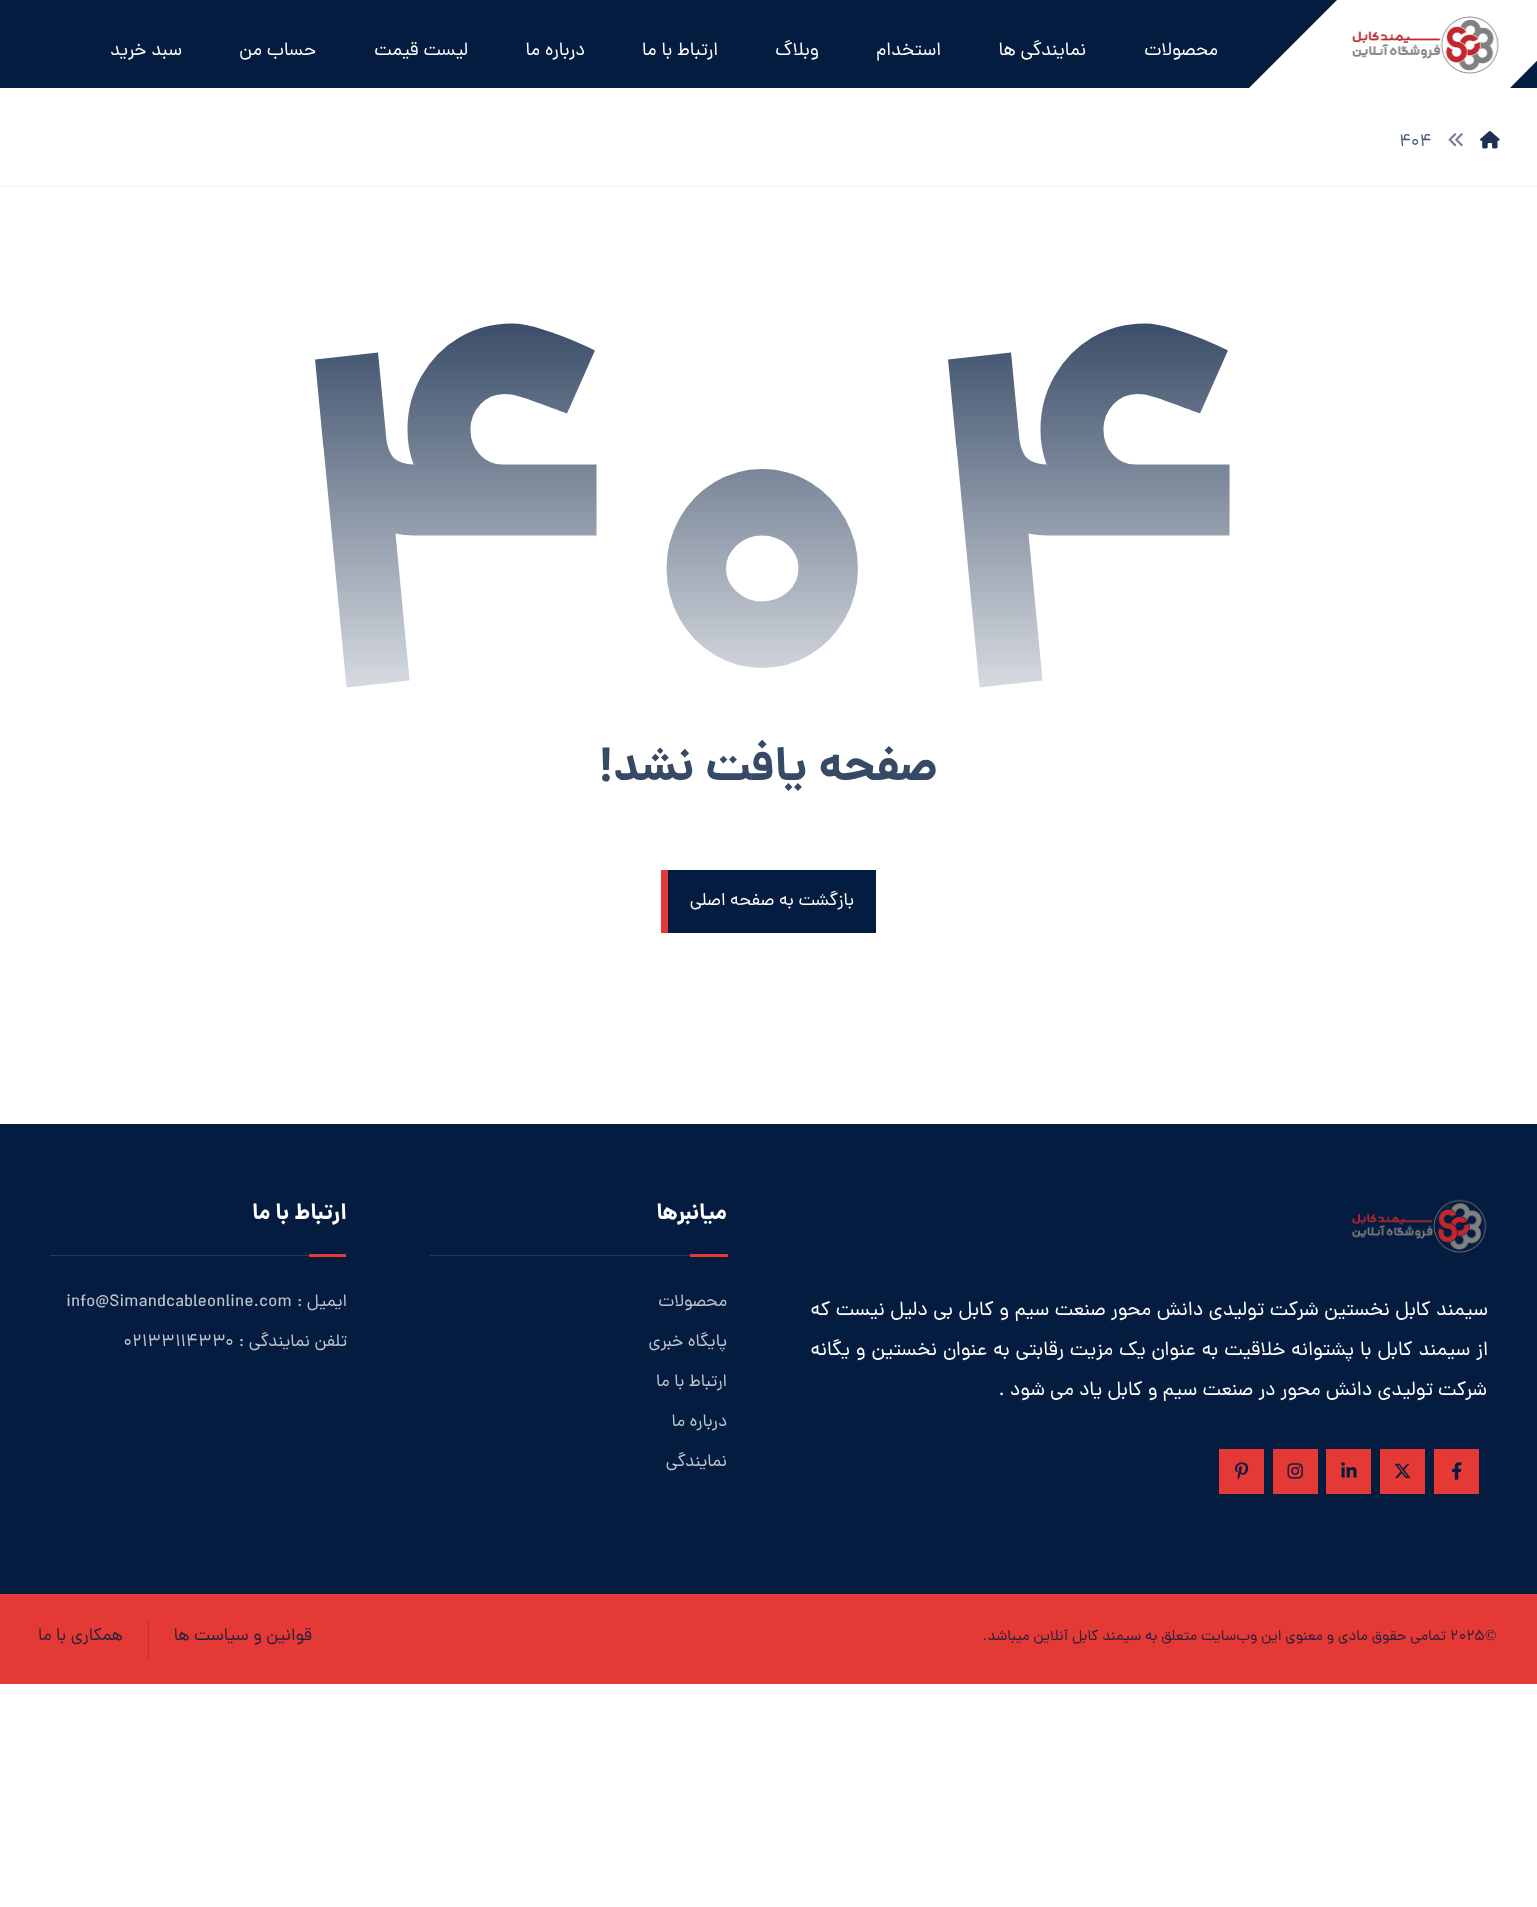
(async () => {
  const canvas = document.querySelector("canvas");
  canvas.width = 1537;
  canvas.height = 1907;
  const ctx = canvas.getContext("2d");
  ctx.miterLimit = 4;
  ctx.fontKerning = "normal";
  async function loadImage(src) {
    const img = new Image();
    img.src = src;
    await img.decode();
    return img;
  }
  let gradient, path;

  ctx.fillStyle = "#ffffff";
  ctx.fillRect(0, 0, 1537, 1907);
  ctx.fillStyle = "#041c3f";
  ctx.fillRect(0, 0, 1537, 88);
  ctx.fillStyle = "#ffffff";
  path = new Path2D("M1337 0H1471L1383 88H1249Z");
  ctx.fill(path);
  path = new Path2D("M1464 0H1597L1510 88H1376Z");
  ctx.fill(path);
  ctx.drawImage(await loadImage("img/1.png"), 1352, 16, 147, 58);
  ctx.fillStyle = "#f4f4f4";
  ctx.fillRect(0, 186, 1537, 1);
  ctx.drawImage(await loadImage("img/2.png"), 1480, 131, 20, 18);
  ctx.drawImage(await loadImage("img/3.png"), 1448, 133, 15, 14);
  for (const [x, y, w, h, color] of [
    [668, 870, 208, 63, "#041c3f"],
    [661, 870, 7, 63, "#e53935"],
    [0, 1124, 1537, 470, "#041c3f"],
  ]) {
    ctx.fillStyle = color;
    ctx.fillRect(x, y, w, h);
  }
  ctx.drawImage(await loadImage("img/4.png"), 1352, 1199, 135, 54);
  ctx.fillStyle = "#e53935";
  ctx.fillRect(1434, 1449, 45, 45);
  ctx.drawImage(await loadImage("img/5.png"), 1452, 1462, 10, 18);
  ctx.fillRect(1380, 1449, 45, 45);
  ctx.drawImage(await loadImage("img/6.png"), 1394, 1463, 17, 16);
  ctx.fillRect(1326, 1449, 45, 45);
  ctx.drawImage(await loadImage("img/7.png"), 1341, 1462, 16, 16);
  ctx.fillRect(1273, 1449, 45, 45);
  ctx.drawImage(await loadImage("img/8.png"), 1287, 1463, 16, 16);
  ctx.fillRect(1219, 1449, 45, 45);
  ctx.drawImage(await loadImage("img/9.png"), 1235, 1462, 14, 18);
  for (const [x, y, w, h, color] of [
    [430, 1255, 260, 1, "#253854"],
    [690, 1254, 38, 3, "#e53935"],
    [50, 1255, 259, 1, "#253854"],
    [309, 1254, 37, 3, "#e53935"],
    [0, 1594, 1537, 90, "#e53935"],
    [148, 1621, 1, 40, "#b83337"],
  ]) {
    ctx.fillStyle = color;
    ctx.fillRect(x, y, w, h);
  }
  ctx.direction = "rtl";
  ctx.font = "18.75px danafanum";
  ctx.fillStyle = "#ffffff";
  for (const [text, x, y] of [
    ["محصولات", 1218, 55],
    ["نمایندگی ها", 1086, 55],
    ["استخدام", 941, 55],
    ["وبلاگ", 819, 55],
    ["ارتباط با ما", 718, 55],
    ["درباره ما", 585, 55],
    ["لیست قیمت", 468, 55],
    ["حساب من", 316, 55],
    ["سبد خرید", 182, 55],
  ]) {
    ctx.fillText(text, x, y);
  }
  ctx.direction = "ltr";
  ctx.font = "17.5px danafanum";
  ctx.fillStyle = "#4a5b74";
  ctx.fillText("۴۰۴", 1399, 146);
  ctx.font = "bold 500px danafanum";
  gradient = ctx.createLinearGradient(769, 195, 769, 979);
  gradient.addColorStop(0, "#041c3f");
  gradient.addColorStop(0.75, "#ffffff");
  ctx.fillStyle = gradient;
  ctx.fillText("۴۰۴", 265, 684);
  ctx.direction = "rtl";
  ctx.font = "bold 47.5px danafanum";
  ctx.fillStyle = "#364965";
  ctx.fillText("صفحه یافت نشد!", 938, 780);
  ctx.font = "18px danafanum";
  ctx.fillStyle = "#ffffff";
  ctx.fillText("بازگشت به صفحه اصلی", 854, 905);
  ctx.wordSpacing = "0.4px";
  ctx.font = "20px danafanum";
  ctx.fillText("سیمند کابل نخستین شرکت تولیدی دانش محور صنعت سیم و کابل بی دلیل نیست که", 1488, 1315);
  ctx.wordSpacing = "0.75px";
  ctx.fillText("از سیمند کابل با پشتوانه خلاقیت به عنوان یک مزیت رقابتی به عنوان نخستین و یگانه", 1488, 1355);
  ctx.wordSpacing = "0px";
  ctx.fillText("شرکت تولیدی دانش محور در صنعت سیم و کابل یاد می شود .", 1487, 1395);
  ctx.font = "bold 22.5px danafanum";
  ctx.fillText("میانبرها", 727, 1219);
  ctx.font = "17.5px danafanum";
  ctx.fillStyle = "#c0c6cf";
  for (const [text, x, y] of [
    ["محصولات", 727, 1306],
    ["پایگاه خبری", 727, 1346],
    ["ارتباط با ما", 727, 1386],
    ["درباره ما", 727, 1426],
    ["نمایندگی", 727, 1466],
  ]) {
    ctx.fillText(text, x, y);
  }
  ctx.font = "bold 22.5px danafanum";
  ctx.fillStyle = "#ffffff";
  ctx.fillText("ارتباط با ما", 347, 1219);
  ctx.font = "17.5px danafanum";
  ctx.fillStyle = "#c0c6cf";
  ctx.fillText("ایمیل :", 347, 1306);
  ctx.direction = "ltr";
  ctx.fillText("info@Simandcableonline.com", 66, 1306);
  ctx.direction = "rtl";
  ctx.fillText("تلفن نمایندگی :", 347, 1346);
  ctx.direction = "ltr";
  ctx.fillText("۰۲۱۳۳۱۱۴۳۳۰", 123, 1346);
  ctx.font = "15px Liberation Serif";
  ctx.fillStyle = "#26203e";
  ctx.fillText("©", 1485, 1640);
  ctx.font = "15px danafanum";
  ctx.fillText("۲۰۲۵", 1450, 1640);
  ctx.direction = "rtl";
  ctx.fillText("تمامی حقوق مادی و معنوی این وب‌سایت متعلق به سیمند کابل آنلاین میباشد.", 1446, 1640);
  ctx.font = "17.5px danafanum";
  ctx.fillText("قوانین و سیاست ها", 312, 1640);
  ctx.fillText("همکاری با ما", 123, 1640);
})();
